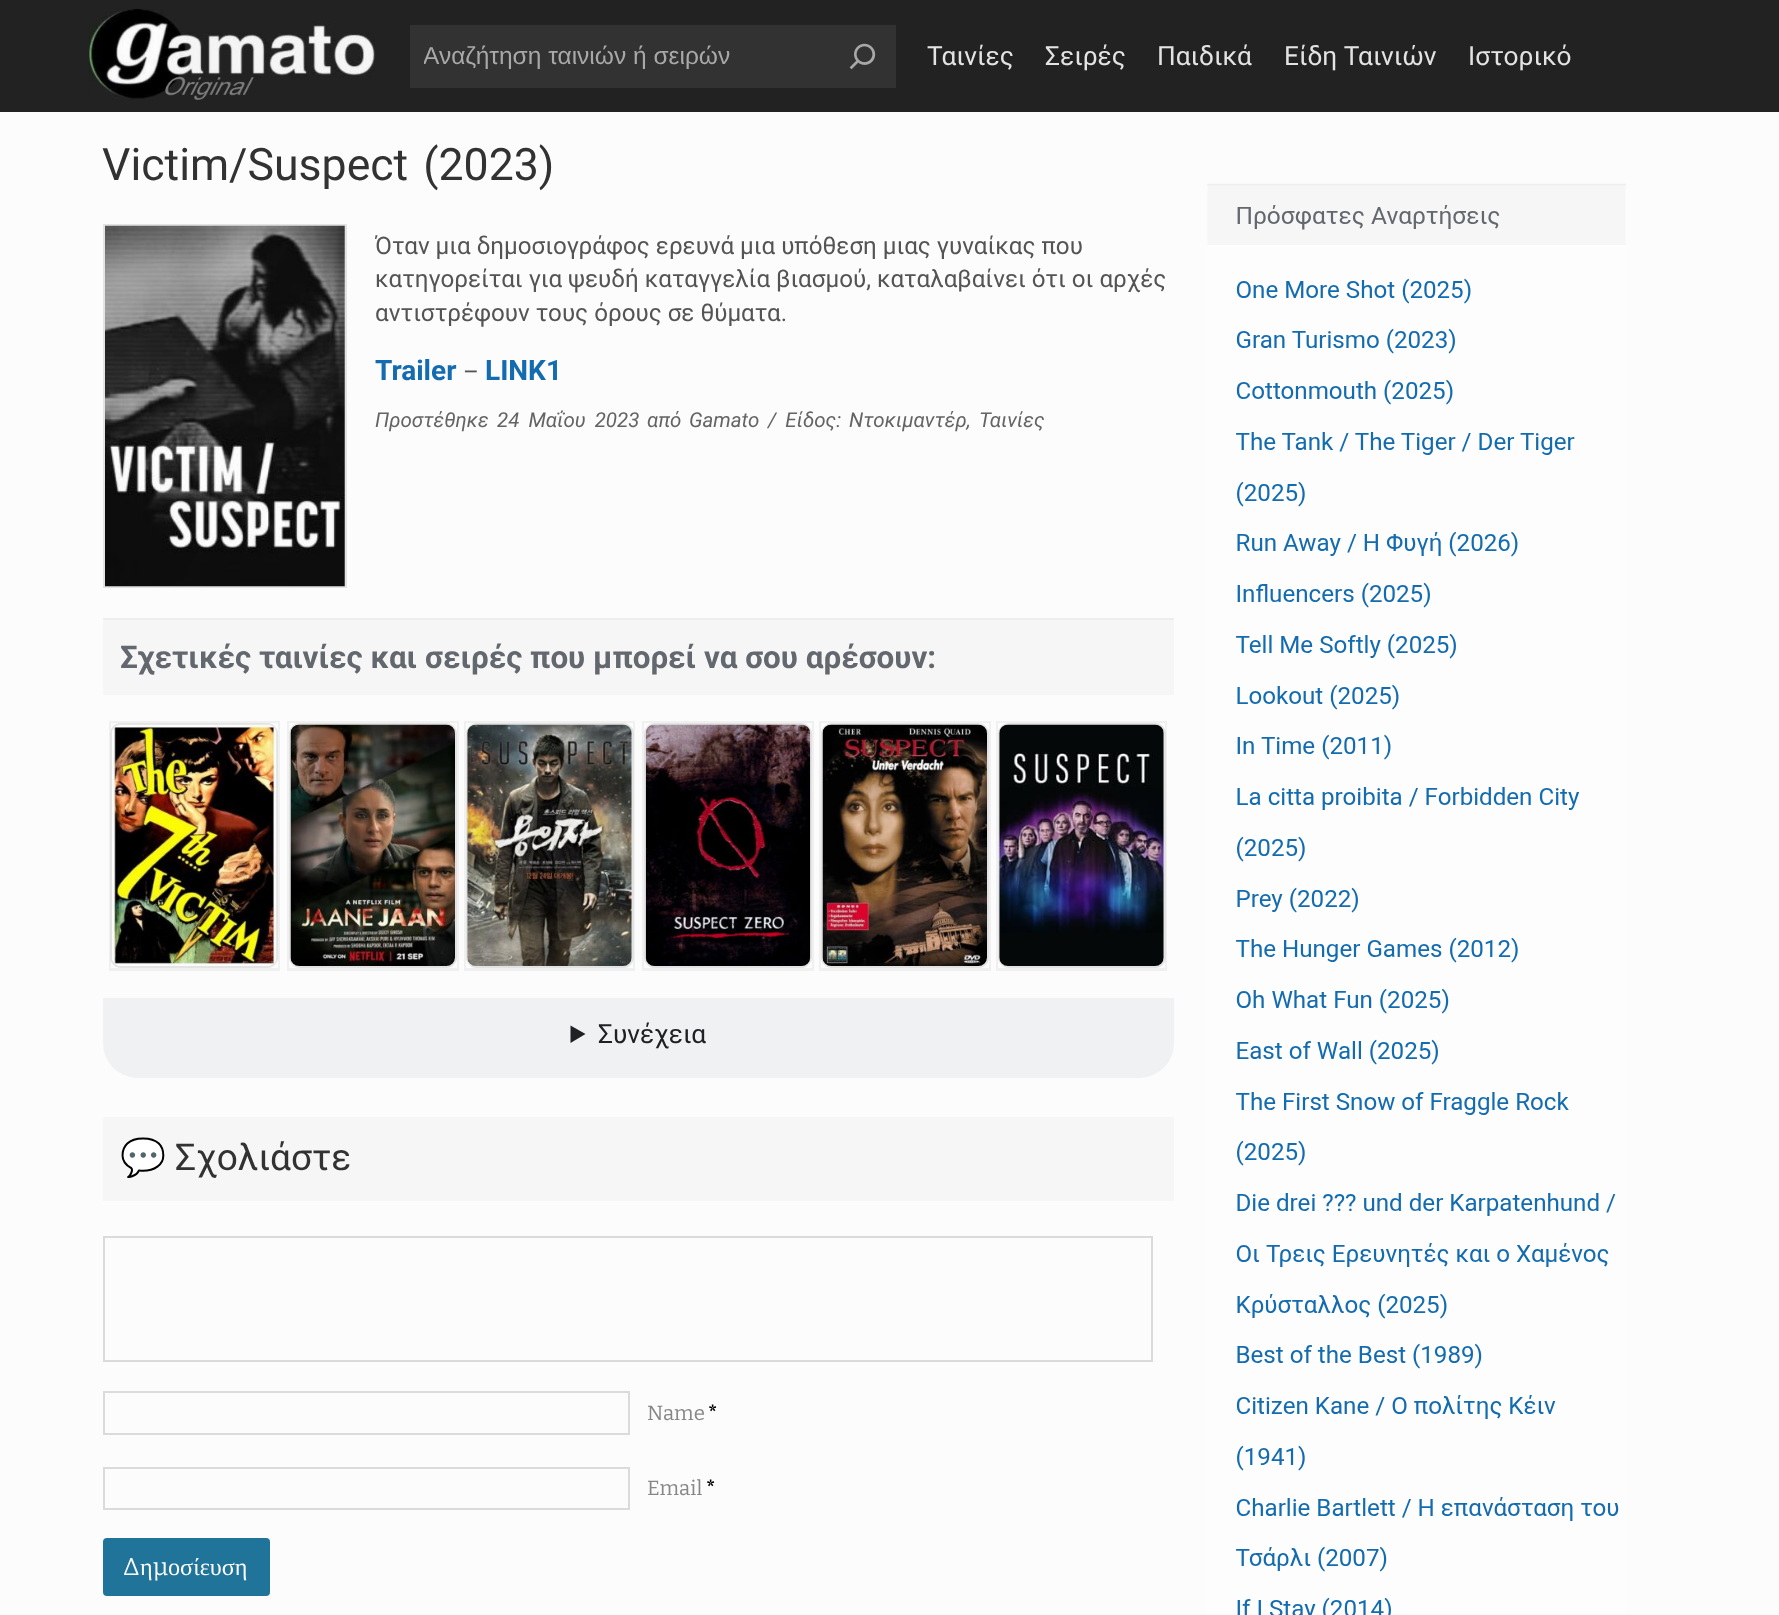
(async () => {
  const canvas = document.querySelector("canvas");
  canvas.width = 1779;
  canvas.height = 1615;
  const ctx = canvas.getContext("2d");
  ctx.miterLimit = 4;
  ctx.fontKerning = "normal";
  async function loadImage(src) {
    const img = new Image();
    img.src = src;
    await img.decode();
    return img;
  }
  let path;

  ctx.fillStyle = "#fcfcfc";
  ctx.fillRect(0, 0, 1779, 1615);
  ctx.fillStyle = "#222222";
  ctx.fillRect(0, 0, 1779, 112);
  ctx.drawImage(await loadImage("img/1.png"), 89, 9, 286, 91);
  ctx.fillStyle = "#323232";
  ctx.fillRect(410, 25, 486, 63);
  ctx.drawImage(await loadImage("img/2.png"), 849, 43, 27, 27);
  ctx.strokeStyle = "#e3e3e3";
  ctx.lineWidth = 2;
  ctx.strokeRect(104, 225, 242, 362);
  ctx.drawImage(await loadImage("img/3.png"), 105, 225, 240, 362);
  ctx.fillStyle = "#f6f6f6";
  ctx.fillRect(103, 620, 1071, 75);
  ctx.fillStyle = "#ededed";
  ctx.fillRect(103, 618, 1071, 2);
  ctx.strokeStyle = "#f0f0f0";
  ctx.strokeRect(110, 722, 169, 247);
  ctx.beginPath();
  ctx.roundRect(111, 724, 166, 243, 10);
  ctx.strokeStyle = "#e3e3e3";
  ctx.stroke();
  ctx.drawImage(await loadImage("img/4.png"), 112, 724, 165, 242);
  ctx.strokeStyle = "#f0f0f0";
  ctx.strokeRect(288, 722, 170, 247);
  ctx.beginPath();
  ctx.roundRect(290, 724, 166, 243, 10);
  ctx.strokeStyle = "#e3e3e3";
  ctx.stroke();
  ctx.drawImage(await loadImage("img/5.png"), 290, 724, 165, 242);
  ctx.strokeStyle = "#f0f0f0";
  ctx.strokeRect(465, 722, 169, 247);
  ctx.beginPath();
  ctx.roundRect(467, 724, 166, 243, 10);
  ctx.strokeStyle = "#e3e3e3";
  ctx.stroke();
  ctx.drawImage(await loadImage("img/6.png"), 467, 724, 165, 242);
  ctx.strokeStyle = "#f0f0f0";
  ctx.strokeRect(643, 722, 170, 247);
  ctx.beginPath();
  ctx.roundRect(645, 724, 166, 243, 10);
  ctx.strokeStyle = "#e3e3e3";
  ctx.stroke();
  ctx.drawImage(await loadImage("img/7.png"), 645, 724, 166, 242);
  ctx.strokeStyle = "#f0f0f0";
  ctx.strokeRect(820, 722, 170, 247);
  ctx.beginPath();
  ctx.roundRect(822, 724, 166, 243, 10);
  ctx.strokeStyle = "#e3e3e3";
  ctx.stroke();
  ctx.drawImage(await loadImage("img/8.png"), 822, 724, 165, 242);
  ctx.strokeStyle = "#f0f0f0";
  ctx.strokeRect(997, 722, 169, 247);
  ctx.beginPath();
  ctx.roundRect(999, 724, 166, 243, 10);
  ctx.strokeStyle = "#e3e3e3";
  ctx.stroke();
  ctx.drawImage(await loadImage("img/9.png"), 999, 724, 165, 242);
  ctx.fillStyle = "#eff1f2";
  ctx.beginPath();
  ctx.roundRect(103, 998, 1071, 80, [0, 0, 35, 35]);
  ctx.fill();
  ctx.save();
  ctx.beginPath();
  ctx.rect(103, 721, 1071, 250);
  ctx.clip();
  ctx.strokeStyle = "#f0f0f0";
  ctx.strokeRect(110, 971, 169, 246);
  ctx.strokeRect(288, 971, 170, 246);
  ctx.strokeRect(820, 971, 170, 246);
  ctx.strokeRect(997, 971, 169, 246);
  ctx.restore();
  ctx.fillStyle = "#202124";
  path = new Path2D("M570.5 1025.5L585.5 1034L570.5 1043Z");
  ctx.fill(path);
  ctx.strokeStyle = "#dbdbdb";
  ctx.strokeRect(104, 1237, 1048, 124);
  ctx.strokeRect(104, 1392, 525, 42);
  ctx.strokeRect(104, 1468, 525, 41);
  ctx.fillStyle = "#217499";
  ctx.beginPath();
  ctx.roundRect(103, 1538, 167, 58, 4);
  ctx.fill();
  ctx.drawImage(await loadImage("img/10.png"), 1207, 183, 419, 1432);
  ctx.save();
  ctx.beginPath();
  ctx.rect(424, 42, 393, 28);
  ctx.clip();
  ctx.font = "24.5px Liberation Sans";
  ctx.fillStyle = "#a8a8a8";
  ctx.fillText("Αναζήτηση ταινιών ή σειρών", 423, 64);
  ctx.restore();
  ctx.font = "26.25px Roboto";
  ctx.fillStyle = "#e3e3e3";
  for (const [text, x, y] of [
    ["Ταινίες", 927, 65],
    ["Σειρές", 1045, 65],
    ["Παιδικά", 1157, 65],
    ["Είδη Ταινιών", 1284, 65],
    ["Ιστορικό", 1468, 65],
  ]) {
    ctx.fillText(text, x, y);
  }
  ctx.wordSpacing = "4px";
  ctx.font = "44.6px Roboto";
  ctx.fillStyle = "#323232";
  ctx.fillText("Victim/Suspect (2023)", 102, 180);
  ctx.wordSpacing = "0px";
  ctx.font = "24.2px Roboto";
  ctx.fillStyle = "#545454";
  for (const [text, x, y] of [
    ["Όταν μια δημοσιογράφος ερευνά μια υπόθεση μιας γυναίκας που", 375, 254],
    ["κατηγορείται για ψευδή καταγγελία βιασμού, καταλαβαίνει ότι οι αρχές", 375, 287],
    ["αντιστρέφουν τους όρους σε θύματα.", 375, 321],
  ]) {
    ctx.fillText(text, x, y);
  }
  ctx.font = "bold 28px Roboto";
  ctx.fillStyle = "#136bb0";
  ctx.fillText("Trailer", 375, 380);
  ctx.font = "24.2px Roboto";
  ctx.fillStyle = "#545454";
  ctx.fillText("–", 463, 380);
  ctx.font = "bold 28px Roboto";
  ctx.fillStyle = "#136bb0";
  ctx.fillText("LINK1", 485, 380);
  ctx.font = "italic 20.5px Roboto";
  ctx.fillStyle = "#656465";
  ctx.fillText("Προστέθηκε", 375, 427);
  ctx.wordSpacing = "4px";
  ctx.fillText("24 Μαΐου 2023", 497, 427);
  ctx.wordSpacing = "0px";
  ctx.fillText("από", 647, 427);
  ctx.fillText("Gamato", 689, 427);
  ctx.wordSpacing = "4px";
  ctx.fillText("/ Είδος:", 768, 427);
  ctx.wordSpacing = "0px";
  ctx.fillText("Ντοκιμαντέρ,", 849, 427);
  ctx.fillText("Ταινίες", 979, 427);
  ctx.font = "bold 31.4px Roboto";
  ctx.fillStyle = "#63686f";
  ctx.fillText("Σχετικές ταινίες και σειρές που μπορεί να σου αρέσουν:", 120, 668);
  ctx.font = "26.25px Roboto";
  ctx.fillStyle = "#202124";
  ctx.fillText("Συνέχεια", 598, 1043);
  ctx.save();
  ctx.beginPath();
  ctx.rect(103, 721, 1071, 250);
  ctx.clip();
  ctx.strokeStyle = "#f0f0f0";
  ctx.strokeRect(643, 971, 170, 246);
  ctx.strokeRect(465, 971, 169, 246);
  ctx.restore();
  ctx.fillStyle = "#f6f6f6";
  ctx.fillRect(103, 1117, 1071, 84);
  ctx.font = "37px Noto Color Emoji";
  ctx.fillStyle = "#323232";
  ctx.fillText("💬", 120, 1170);
  ctx.font = "37px Roboto";
  ctx.fillText("Σχολιάστε", 175, 1170);
  ctx.font = "20.5px Bitter";
  ctx.fillStyle = "#878787";
  ctx.fillText("Name", 647, 1420);
  ctx.font = "bold 20.5px Bitter";
  ctx.fillStyle = "#000000";
  ctx.fillText("*", 708, 1420);
  ctx.font = "20.5px Bitter";
  ctx.fillStyle = "#878787";
  ctx.fillText("Email", 647, 1495);
  ctx.font = "bold 20.5px Bitter";
  ctx.fillStyle = "#000000";
  ctx.fillText("*", 706, 1495);
  ctx.font = "24.2px Bitter";
  ctx.fillStyle = "#fcfcfc";
  ctx.fillText("Δ", 123, 1575);
  ctx.font = "24.2px Liberation Serif";
  ctx.fillText("η", 140, 1575);
  ctx.font = "24.2px Bitter";
  ctx.fillText("μ", 153, 1575);
  ctx.font = "24.2px Liberation Serif";
  ctx.fillText("οσίευση", 168, 1575);
})();
